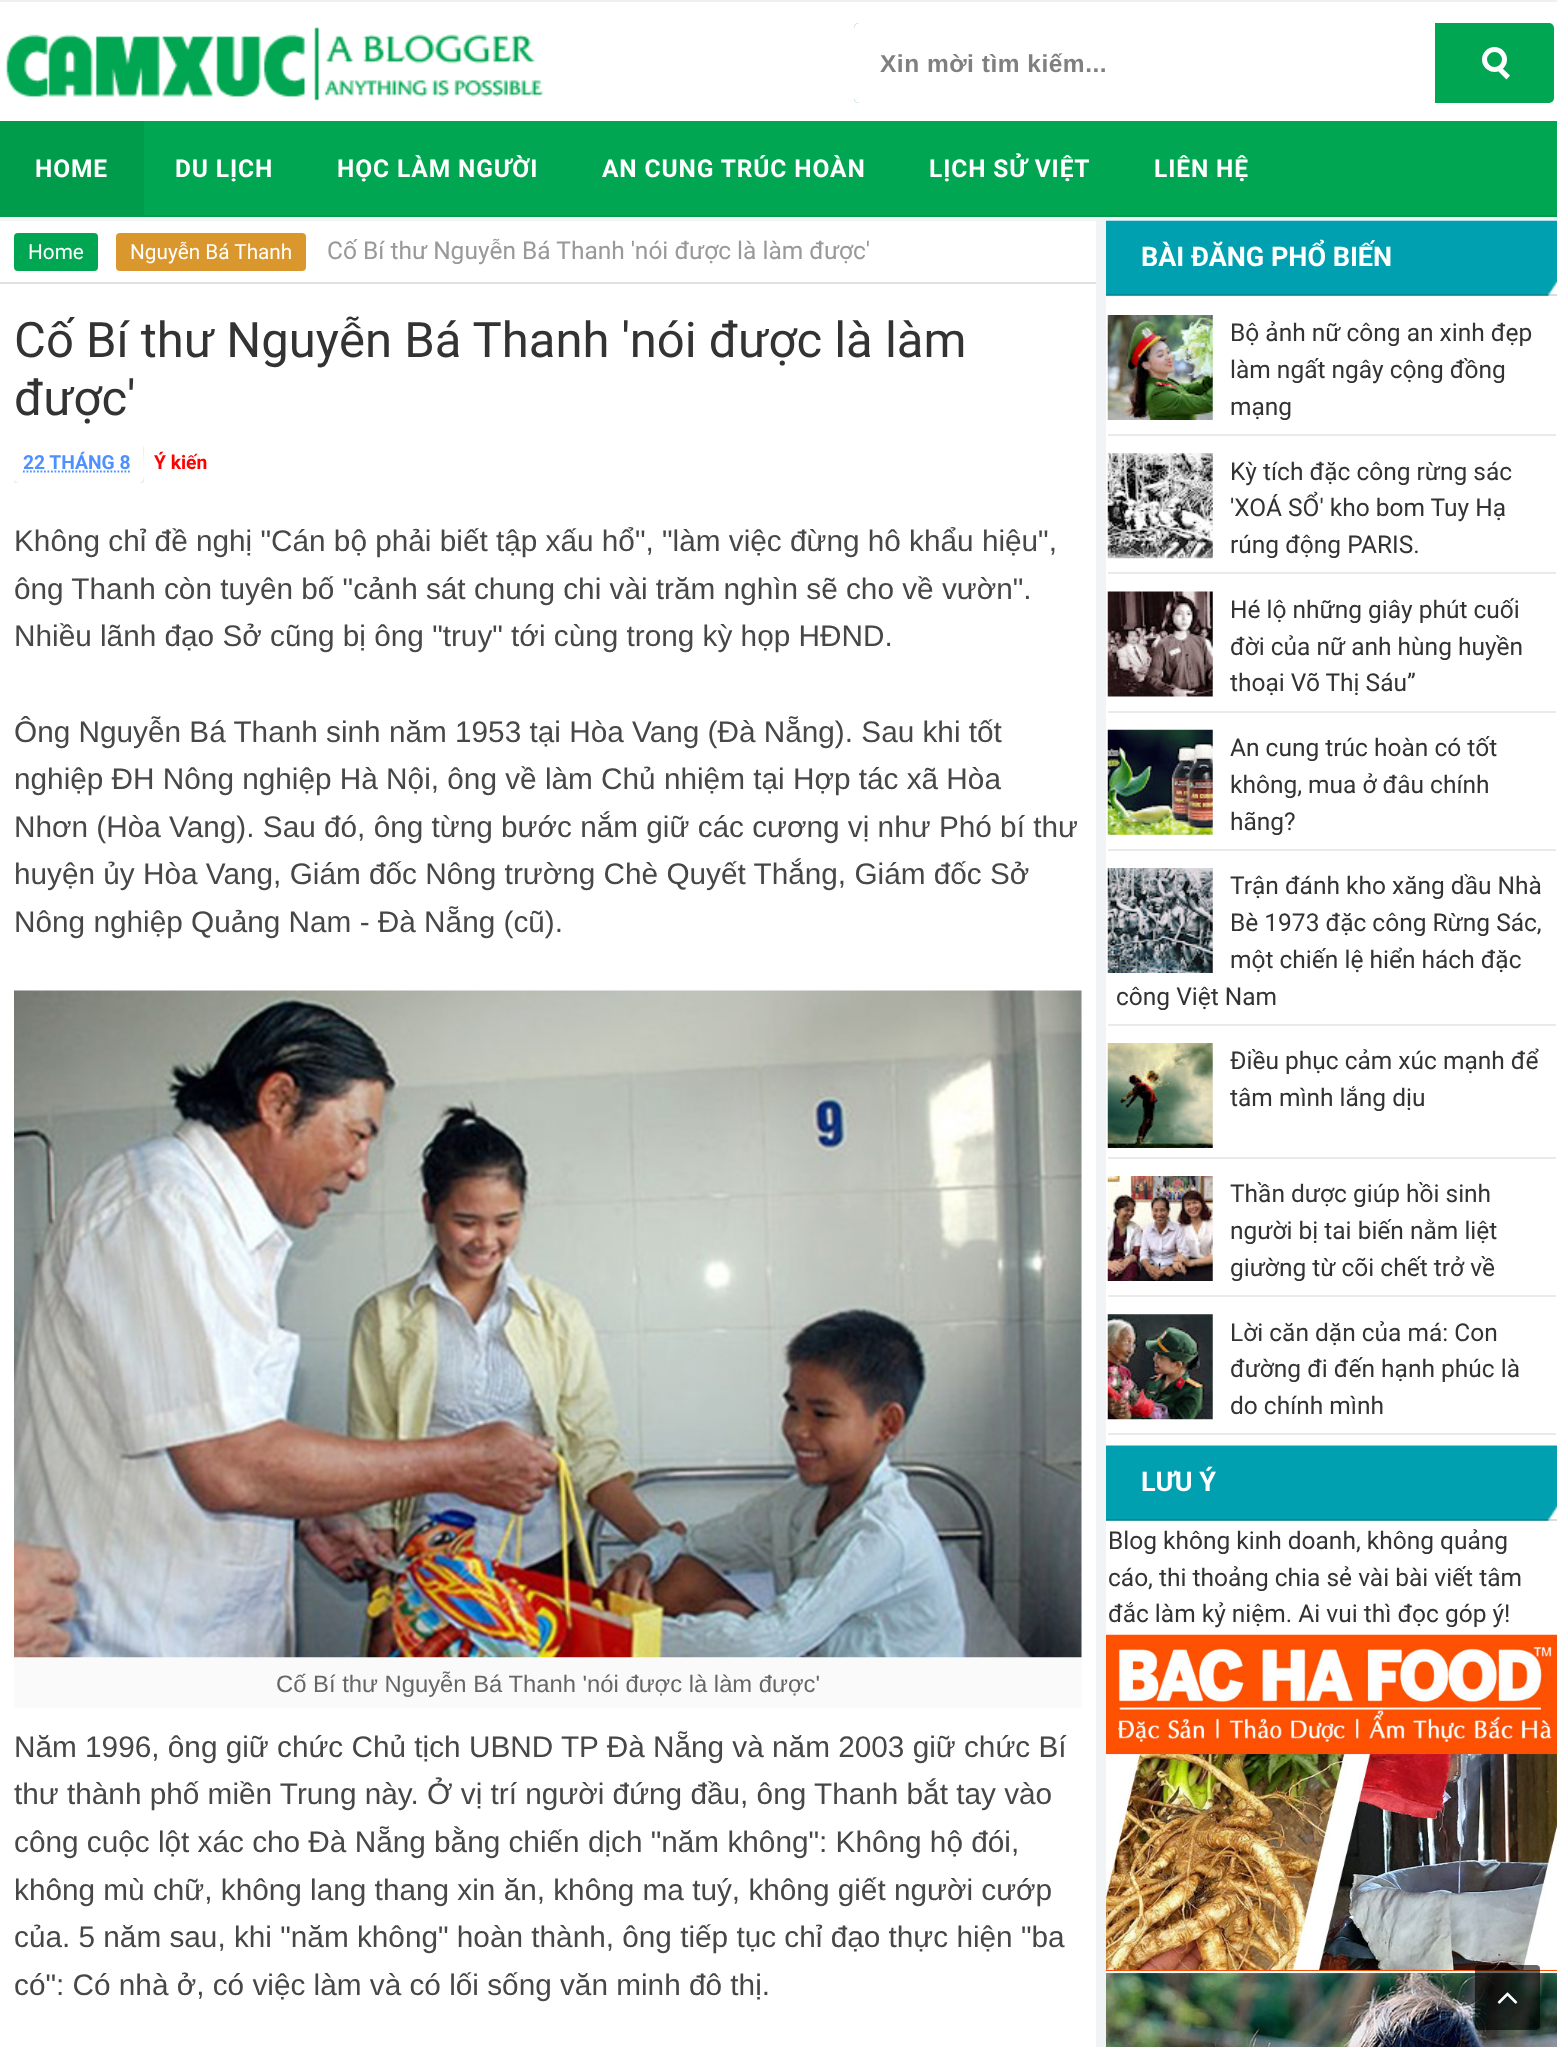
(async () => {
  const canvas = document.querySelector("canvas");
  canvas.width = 1557;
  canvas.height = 2047;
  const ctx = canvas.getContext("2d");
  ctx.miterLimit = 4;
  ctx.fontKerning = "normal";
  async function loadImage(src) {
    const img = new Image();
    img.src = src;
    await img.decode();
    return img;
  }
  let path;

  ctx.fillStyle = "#f2f3f6";
  ctx.fillRect(0, 0, 1557, 2047);
  ctx.fillStyle = "#ffffff";
  ctx.fillRect(0, 2, 1557, 119);
  ctx.fillStyle = "#f0f0f0";
  ctx.fillRect(0, 0, 1557, 2);
  ctx.drawImage(await loadImage("img/1.png"), 6, 27, 537, 74);
  ctx.fillStyle = "#00a651";
  ctx.beginPath();
  ctx.roundRect(854, 23, 700, 80, 5);
  ctx.fill();
  ctx.fillStyle = "#ffffff";
  ctx.beginPath();
  ctx.roundRect(854, 23, 581, 80, [5, 0, 0, 5]);
  ctx.fill();
  ctx.beginPath();
  ctx.arc(1494.5, 59.5, 10, 0, Math.PI * 2);
  ctx.strokeStyle = "#ffffff";
  ctx.lineWidth = 5;
  ctx.stroke();
  path = new Path2D("M1500 66L1510 75.5L1506.5 79.5L1496.5 69.5Z");
  ctx.fill(path);
  for (const [x, y, w, h, color] of [
    [144, 121, 1413, 94, "#00a651"],
    [0, 215, 1557, 2, "#009c4c"],
    [0, 121, 144, 94, "#009c4c"],
    [0, 221, 1096, 61, "#ffffff"],
    [0, 282, 1096, 2, "#e0e0e0"],
  ]) {
    ctx.fillStyle = color;
    ctx.fillRect(x, y, w, h);
  }
  ctx.fillStyle = "#00a651";
  ctx.beginPath();
  ctx.roundRect(14, 233, 84, 38, 4);
  ctx.fill();
  ctx.fillStyle = "#da972d";
  ctx.beginPath();
  ctx.roundRect(116, 233, 190, 38, 4);
  ctx.fill();
  ctx.fillStyle = "#ffffff";
  ctx.fillRect(0, 284, 1096, 1763);
  ctx.save();
  ctx.beginPath();
  ctx.rect(14, 441, 1068, 42);
  ctx.clip();
  ctx.fillStyle = "#ebebeb";
  path = new Path2D("M14 478V480C14 483 16 485 19 485H139C142 485 144 483 144 480V448L143 446L144 472C144 477 144 483 138 483H39C29 483 14 486 14 478Z");
  ctx.fill(path);
  ctx.restore();
  path = new Path2D("M23 471.5H130.5");
  ctx.strokeStyle = "#4d90fe";
  ctx.lineWidth = 1.8;
  ctx.setLineDash([1.75, 1.75]);
  ctx.stroke(path);
  ctx.fillStyle = "#fafafa";
  ctx.fillRect(14, 991, 1068, 717);
  ctx.drawImage(await loadImage("img/2.png"), 14, 990, 1068, 668);
  ctx.fillStyle = "#ffffff";
  ctx.fillRect(1106, 281, 451, 1165);
  ctx.drawImage(await loadImage("img/3.png"), 1106, 220, 451, 76);
  ctx.fillStyle = "rgba(0, 0, 0, 0.14)";
  ctx.fillRect(1106, 294, 451, 2);
  ctx.fillStyle = "#eaeaea";
  ctx.fillRect(1108, 434, 448, 2);
  ctx.drawImage(await loadImage("img/4.png"), 1107, 315, 106, 105);
  ctx.fillRect(1108, 572, 448, 2);
  ctx.drawImage(await loadImage("img/5.png"), 1107, 453, 106, 106);
  ctx.fillRect(1108, 711, 448, 2);
  ctx.drawImage(await loadImage("img/6.png"), 1107, 591, 106, 106);
  ctx.fillRect(1108, 849, 448, 2);
  ctx.drawImage(await loadImage("img/7.png"), 1107, 729, 106, 106);
  ctx.fillRect(1108, 1024, 448, 2);
  ctx.drawImage(await loadImage("img/8.png"), 1107, 868, 106, 105);
  ctx.fillRect(1108, 1157, 448, 2);
  ctx.drawImage(await loadImage("img/9.png"), 1107, 1043, 106, 105);
  ctx.fillRect(1108, 1295, 448, 2);
  ctx.drawImage(await loadImage("img/10.png"), 1107, 1176, 106, 105);
  ctx.fillRect(1108, 1433, 448, 2);
  ctx.drawImage(await loadImage("img/11.png"), 1107, 1314, 106, 106);
  ctx.fillStyle = "#ffffff";
  ctx.fillRect(1106, 1506, 451, 129);
  ctx.drawImage(await loadImage("img/12.png"), 1106, 1445, 451, 76);
  ctx.fillStyle = "rgba(0, 0, 0, 0.14)";
  ctx.fillRect(1106, 1519, 451, 2);
  ctx.drawImage(await loadImage("img/13.png"), 1106, 1634, 451, 413);
  ctx.fillStyle = "rgba(0, 0, 0, 0.6)";
  ctx.beginPath();
  ctx.roundRect(1475, 1965, 65, 65, 4);
  ctx.fill();
  ctx.drawImage(await loadImage("img/14.png"), 1497, 1992, 21, 12);
  ctx.letterSpacing = "0.5px";
  ctx.font = "bold 24.5px Liberation Sans";
  ctx.fillStyle = "#808080";
  ctx.fillText("Xin mời tìm kiếm...", 880, 72);
  ctx.letterSpacing = "0.9px";
  ctx.font = "bold 24.5px Roboto";
  ctx.fillStyle = "#ffffff";
  for (const [text, x, y] of [
    ["HOME", 35, 177],
    ["DU LỊCH", 175, 177],
    ["HỌC LÀM NGƯỜI", 337, 177],
    ["AN CUNG TRÚC HOÀN", 602, 177],
    ["LỊCH SỬ VIỆT", 929, 177],
    ["LIÊN HỆ", 1154, 177],
  ]) {
    ctx.fillText(text, x, y);
  }
  ctx.letterSpacing = "0px";
  ctx.font = "20.75px Roboto";
  ctx.fillText("Home", 28, 259);
  ctx.fillText("Nguyễn Bá Thanh", 130, 259);
  ctx.font = "24.5px Roboto";
  ctx.fillStyle = "#999999";
  ctx.fillText("Cố Bí thư Nguyễn Bá Thanh 'nói được là làm được'", 327, 259);
  ctx.font = "49px Roboto";
  ctx.fillStyle = "#333333";
  ctx.fillText("Cố Bí thư Nguyễn Bá Thanh 'nói được là làm", 14, 357);
  ctx.fillText("được'", 14, 415);
  ctx.font = "bold 19.25px Roboto";
  ctx.fillStyle = "#4d90fe";
  ctx.fillText("22 THÁNG 8", 23, 469);
  ctx.fillStyle = "#ff0000";
  ctx.fillText("Ý kiến", 154, 469);
  ctx.font = "29.75px Liberation Sans";
  ctx.fillStyle = "#474747";
  for (const [text, x, y] of [
    ["Không chỉ đề nghị \"Cán bộ phải biết tập xấu hổ\", \"làm việc đừng hô khẩu hiệu\",", 14, 551],
    ["ông Thanh còn tuyên bố \"cảnh sát chung chi vài trăm nghìn sẽ cho về vườn\".", 14, 599],
    ["Nhiều lãnh đạo Sở cũng bị ông \"truy\" tới cùng trong kỳ họp HĐND.", 14, 646],
    ["Ông Nguyễn Bá Thanh sinh năm 1953 tại Hòa Vang (Đà Nẵng). Sau khi tốt", 14, 742],
    ["nghiệp ĐH Nông nghiệp Hà Nội, ông về làm Chủ nhiệm tại Hợp tác xã Hòa", 14, 789],
    ["Nhơn (Hòa Vang). Sau đó, ông từng bước nắm giữ các cương vị như Phó bí thư", 14, 837],
    ["huyện ủy Hòa Vang, Giám đốc Nông trường Chè Quyết Thắng, Giám đốc Sở", 14, 884],
    ["Nông nghiệp Quảng Nam - Đà Nẵng (cũ).", 14, 932],
  ]) {
    ctx.fillText(text, x, y);
  }
  ctx.font = "23.8px Liberation Sans";
  ctx.fillStyle = "#666666";
  ctx.fillText("Cố Bí thư Nguyễn Bá Thanh 'nói được là làm được'", 276, 1692);
  ctx.font = "29.75px Liberation Sans";
  ctx.fillStyle = "#474747";
  for (const [text, x, y] of [
    ["Năm 1996, ông giữ chức Chủ tịch UBND TP Đà Nẵng và năm 2003 giữ chức Bí", 14, 1757],
    ["thư thành phố miền Trung này. Ở vị trí người đứng đầu, ông Thanh bắt tay vào", 14, 1804],
    ["công cuộc lột xác cho Đà Nẵng bằng chiến dịch \"năm không\": Không hộ đói,", 14, 1852],
    ["không mù chữ, không lang thang xin ăn, không ma tuý, không giết người cướp", 14, 1900],
    ["của. 5 năm sau, khi \"năm không\" hoàn thành, ông tiếp tục chỉ đạo thực hiện \"ba", 14, 1947],
    ["có\": Có nhà ở, có việc làm và có lối sống văn minh đô thị.", 14, 1995],
  ]) {
    ctx.fillText(text, x, y);
  }
  ctx.font = "bold 27px Roboto";
  ctx.fillStyle = "#ffffff";
  ctx.fillText("BÀI ĐĂNG PHỔ BIẾN", 1141, 266);
  ctx.font = "24.5px Roboto";
  ctx.fillStyle = "#333333";
  for (const [text, x, y] of [
    ["Bộ ảnh nữ công an xinh đẹp", 1230, 341],
    ["làm ngất ngây cộng đồng", 1230, 378],
    ["mạng", 1230, 415],
    ["Kỳ tích đặc công rừng sác", 1230, 480],
    ["'XOÁ SỔ' kho bom Tuy Hạ", 1230, 516],
    ["rúng động PARIS.", 1230, 553],
    ["Hé lộ những giây phút cuối", 1230, 618],
    ["đời của nữ anh hùng huyền", 1230, 655],
    ["thoại Võ Thị Sáu”", 1230, 691],
    ["An cung trúc hoàn có tốt", 1230, 756],
    ["không, mua ở đâu chính", 1230, 793],
    ["hãng?", 1230, 830],
    ["Trận đánh kho xăng dầu Nhà", 1230, 894],
    ["Bè 1973 đặc công Rừng Sác,", 1230, 931],
    ["một chiến lệ hiển hách đặc", 1230, 968],
    ["công Việt Nam", 1116, 1005],
    ["Điều phục cảm xúc mạnh để", 1230, 1069],
    ["tâm mình lắng dịu", 1230, 1106],
    ["Thần dược giúp hồi sinh", 1230, 1202],
    ["người bị tai biến nằm liệt", 1230, 1239],
    ["giường từ cõi chết trở về", 1230, 1276],
    ["Lời căn dặn của má: Con", 1230, 1341],
    ["đường đi đến hạnh phúc là", 1230, 1377],
    ["do chính mình", 1230, 1414],
  ]) {
    ctx.fillText(text, x, y);
  }
  ctx.font = "bold 27px Roboto";
  ctx.fillStyle = "#ffffff";
  ctx.fillText("LƯU Ý", 1141, 1491);
  ctx.font = "24.5px Roboto";
  ctx.fillStyle = "#333333";
  for (const [text, x, y] of [
    ["Blog không kinh doanh, không quảng", 1108, 1549],
    ["cáo, thi thoảng chia sẻ vài bài viết tâm", 1108, 1586],
    ["đắc làm kỷ niệm. Ai vui thì đọc góp ý!", 1108, 1622],
  ]) {
    ctx.fillText(text, x, y);
  }
})();
